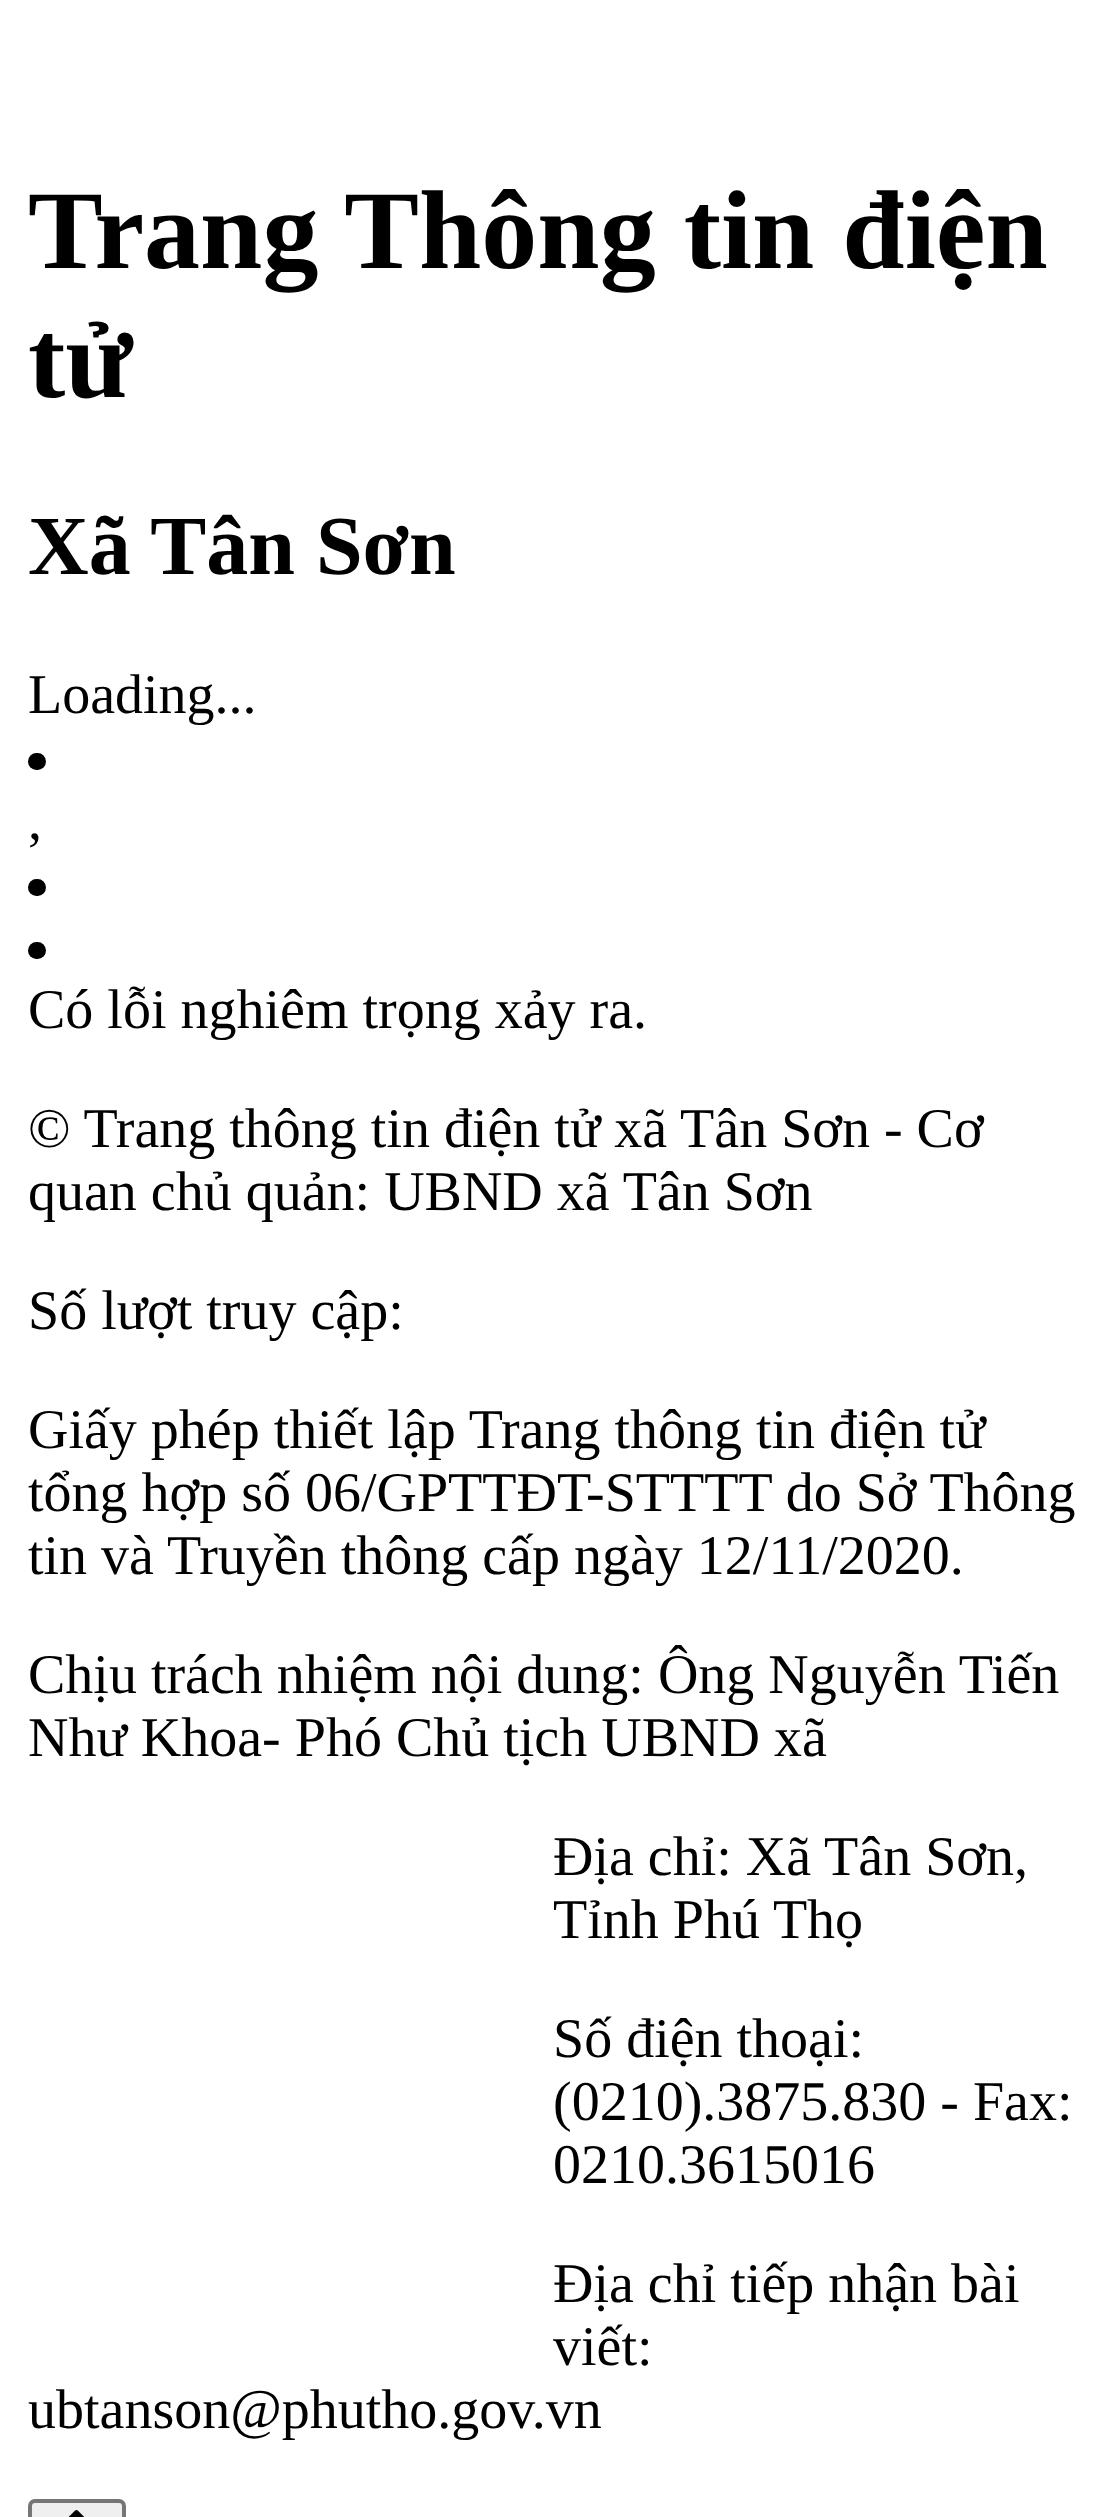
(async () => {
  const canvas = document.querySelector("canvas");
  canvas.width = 1117;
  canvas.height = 2517;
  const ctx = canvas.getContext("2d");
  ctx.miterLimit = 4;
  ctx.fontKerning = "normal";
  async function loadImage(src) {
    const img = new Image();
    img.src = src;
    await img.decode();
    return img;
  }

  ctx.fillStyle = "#ffffff";
  ctx.fillRect(0, 0, 1117, 2517);
  ctx.fillStyle = "#000000";
  ctx.beginPath();
  ctx.roundRect(28, 753, 18, 17, 8.5);
  ctx.fill();
  ctx.beginPath();
  ctx.roundRect(28, 879, 18, 17, 8.5);
  ctx.fill();
  ctx.beginPath();
  ctx.roundRect(28, 942, 18, 17, 8.5);
  ctx.fill();
  ctx.fillStyle = "#efefef";
  ctx.beginPath();
  ctx.roundRect(30, 2501, 94, 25, 5);
  ctx.fill();
  ctx.strokeStyle = "#767676";
  ctx.lineWidth = 4;
  ctx.stroke();
  ctx.drawImage(await loadImage("img/1.png"), 68, 2510, 17, 7);
  ctx.font = "bold 112px Liberation Serif";
  ctx.fillStyle = "#000000";
  ctx.fillText("Trang Thông tin điện", 28, 268);
  ctx.fillText("tử", 28, 397);
  ctx.font = "bold 84px Liberation Serif";
  ctx.fillText("Xã Tân Sơn", 28, 574);
  ctx.font = "56px Liberation Serif";
  for (const [text, x, y] of [
    ["Loading...", 28, 713],
    [",", 28, 839],
    ["Có lỗi nghiêm trọng xảy ra.", 28, 1028],
    ["© Trang thông tin điện tử xã Tân Sơn - Cơ", 28, 1147],
    ["quan chủ quản: UBND xã Tân Sơn", 28, 1210],
    ["Số lượt truy cập:", 28, 1329],
    ["Giấy phép thiết lập Trang thông tin điện tử", 28, 1448],
    ["tổng hợp số 06/GPTTĐT-STTTT do Sở Thông", 28, 1511],
    ["tin và Truyền thông cấp ngày 12/11/2020.", 28, 1574],
    ["Chịu trách nhiệm nội dung: Ông Nguyễn Tiến", 28, 1693],
    ["Như Khoa- Phó Chủ tịch UBND xã", 28, 1756],
    ["Địa chỉ: Xã Tân Sơn,", 553, 1875],
    ["Tỉnh Phú Thọ", 553, 1938],
    ["Số điện thoại:", 553, 2057],
    ["(0210).3875.830 - Fax:", 553, 2120],
    ["0210.3615016", 553, 2183],
    ["Địa chỉ tiếp nhận bài", 553, 2302],
    ["viết:", 553, 2365],
    ["ubtanson@phutho.gov.vn", 28, 2428],
  ]) {
    ctx.fillText(text, x, y);
  }
})();
